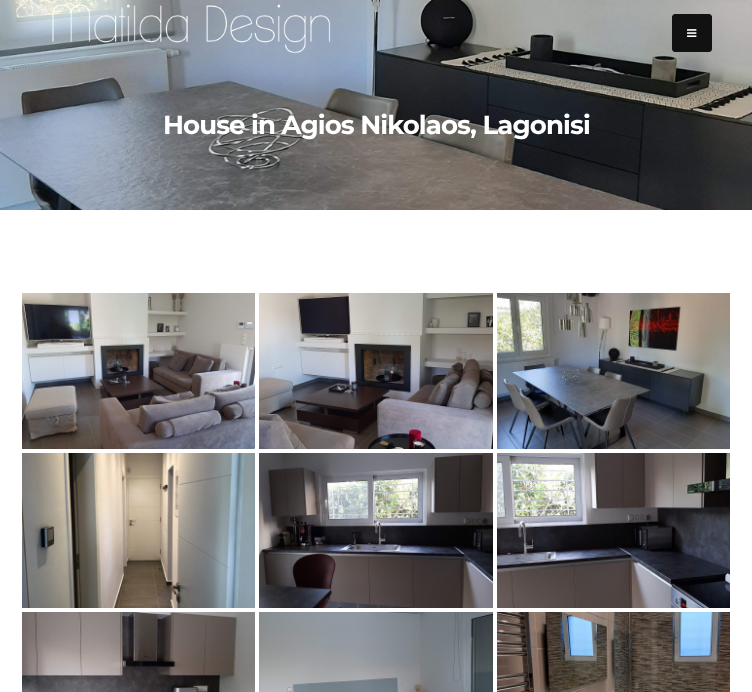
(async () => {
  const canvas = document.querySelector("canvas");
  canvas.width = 752;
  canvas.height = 692;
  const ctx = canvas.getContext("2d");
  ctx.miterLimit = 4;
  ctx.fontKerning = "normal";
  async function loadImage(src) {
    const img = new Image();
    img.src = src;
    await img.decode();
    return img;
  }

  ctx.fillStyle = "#ffffff";
  ctx.fillRect(0, 0, 752, 692);
  ctx.drawImage(await loadImage("img/1.png"), 0, 0, 752, 210);
  ctx.drawImage(await loadImage("img/2.png"), 52, 4, 279, 50);
  ctx.fillStyle = "#111111";
  ctx.beginPath();
  ctx.roundRect(672.5, 14.5, 39, 37, 2.5);
  ctx.fill();
  ctx.strokeStyle = "#111111";
  ctx.stroke();
  ctx.drawImage(await loadImage("img/3.png"), 687, 29, 10, 8);
  ctx.drawImage(await loadImage("img/4.png"), 22, 293, 233, 156);
  ctx.drawImage(await loadImage("img/5.png"), 259, 293, 234, 156);
  ctx.drawImage(await loadImage("img/6.png"), 497, 293, 233, 156);
  ctx.drawImage(await loadImage("img/7.png"), 22, 453, 233, 155);
  ctx.drawImage(await loadImage("img/8.png"), 259, 453, 234, 155);
  ctx.drawImage(await loadImage("img/9.png"), 497, 453, 233, 155);
  ctx.drawImage(await loadImage("img/10.png"), 22, 612, 233, 80);
  ctx.drawImage(await loadImage("img/11.png"), 259, 612, 234, 80);
  ctx.drawImage(await loadImage("img/12.png"), 497, 612, 233, 80);
  ctx.letterSpacing = "-0.9px";
  ctx.font = "100 26px Montserrat";
  ctx.fillStyle = "#ffffff";
  ctx.fillText("House in Agios Nikolaos, Lagonisi", 163, 134);
})();
